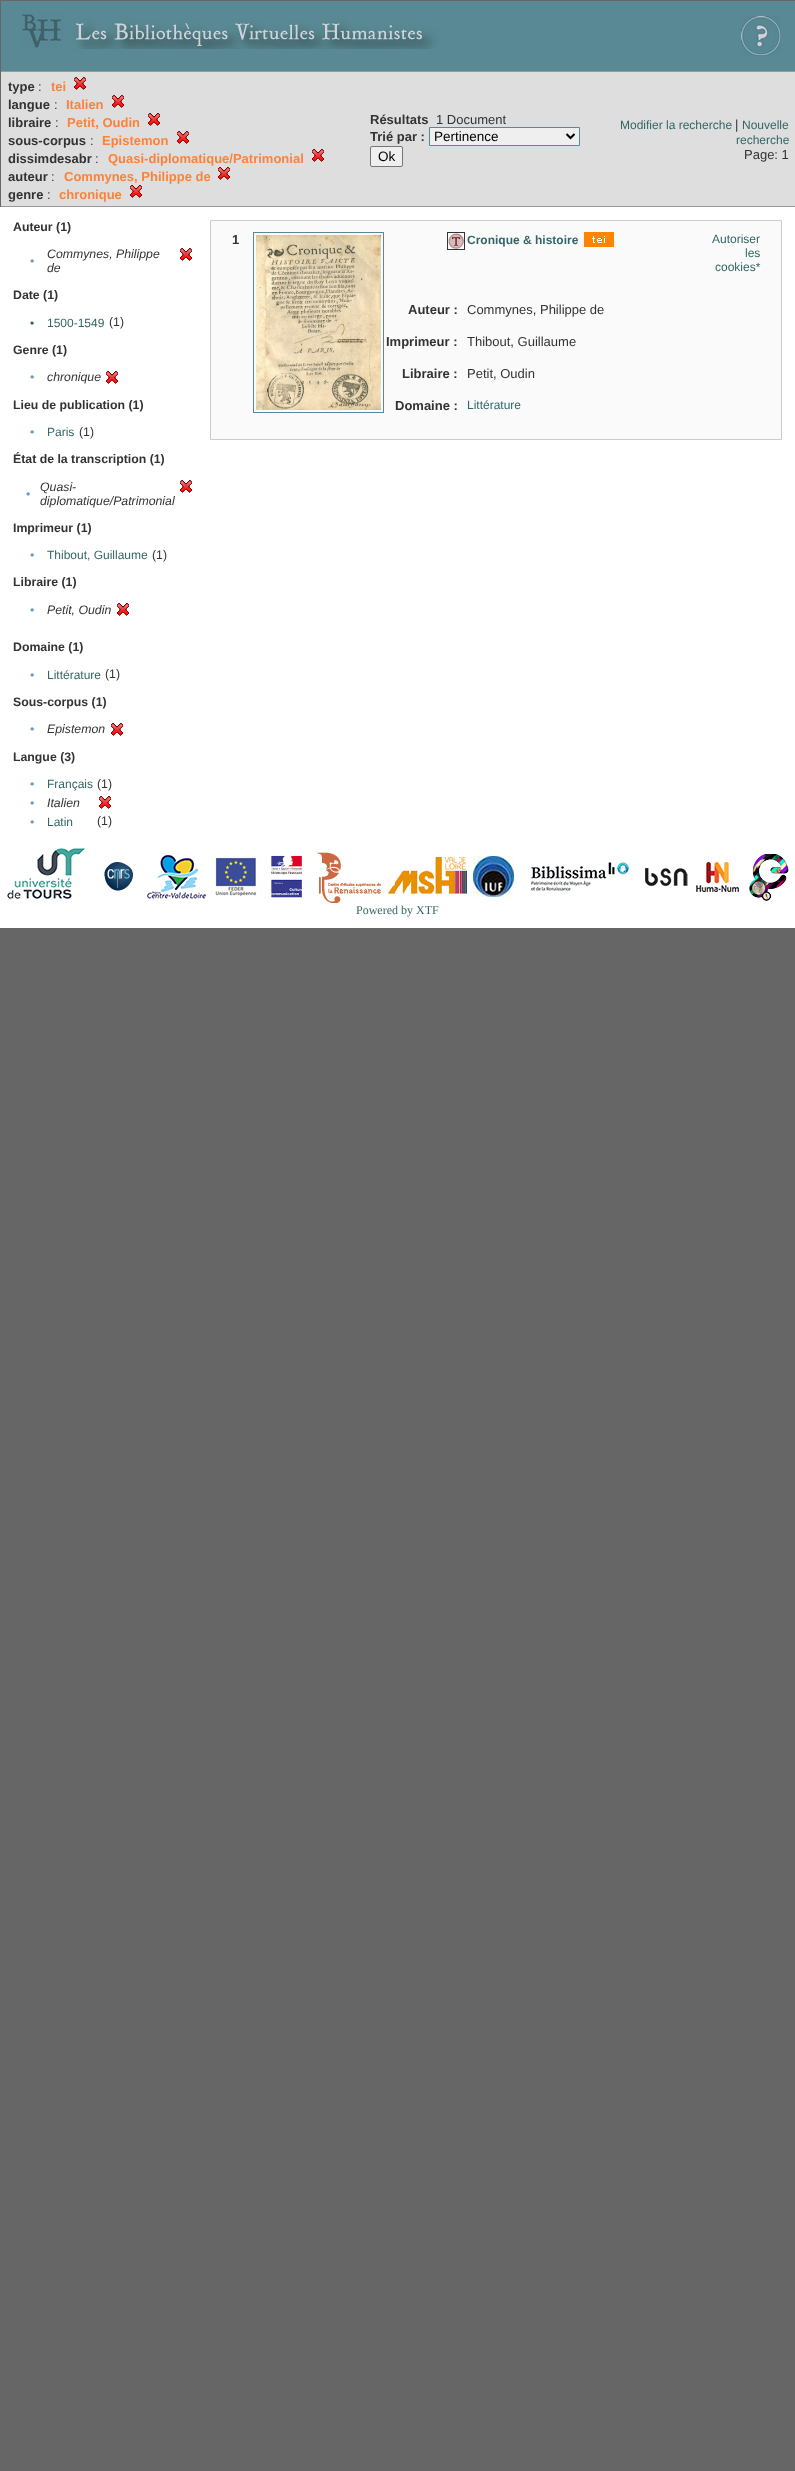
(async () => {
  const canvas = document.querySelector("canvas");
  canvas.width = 795;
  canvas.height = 2471;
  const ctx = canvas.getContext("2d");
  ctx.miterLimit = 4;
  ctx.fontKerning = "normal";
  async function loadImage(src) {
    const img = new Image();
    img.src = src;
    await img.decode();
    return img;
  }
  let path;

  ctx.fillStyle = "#666666";
  ctx.fillRect(0, 0, 795, 2471);
  ctx.fillStyle = "#598995";
  ctx.fillRect(1, 1, 794, 70);
  ctx.drawImage(await loadImage("img/1.png"), 21, 12, 417, 37);
  ctx.drawImage(await loadImage("img/2.png"), 741, 16, 40, 40);
  for (const [x, y, w, h, color] of [
    [1, 72, 794, 134, "#dededf"],
    [0, 71, 795, 1, "#999999"],
    [0, 206, 795, 1, "#999999"],
    [0, 71, 1, 136, "#666666"],
  ]) {
    ctx.fillStyle = color;
    ctx.fillRect(x, y, w, h);
  }
  ctx.drawImage(await loadImage("img/3.png"), 74, 77, 12, 13);
  ctx.drawImage(await loadImage("img/3.png"), 112, 95, 12, 13);
  ctx.drawImage(await loadImage("img/3.png"), 148, 113, 12, 13);
  ctx.drawImage(await loadImage("img/3.png"), 177, 131, 12, 13);
  ctx.drawImage(await loadImage("img/3.png"), 312, 149, 12, 13);
  ctx.drawImage(await loadImage("img/3.png"), 218, 167, 12, 13);
  ctx.drawImage(await loadImage("img/3.png"), 130, 185, 12, 13);
  ctx.fillStyle = "#efefef";
  ctx.beginPath();
  ctx.rect(429.5, 127.5, 150, 18);
  ctx.fill();
  ctx.strokeStyle = "#598995";
  ctx.stroke();
  path = new Path2D("M566.5 134L570.5 138L574.5 134");
  ctx.strokeStyle = "#000000";
  ctx.lineWidth = 2;
  ctx.stroke(path);
  ctx.beginPath();
  ctx.roundRect(370.5, 146.5, 32, 20, 1.5);
  ctx.fill();
  ctx.strokeStyle = "#767676";
  ctx.lineWidth = 1;
  ctx.stroke();
  ctx.fillStyle = "#ffffff";
  ctx.fillRect(0, 207, 795, 721);
  ctx.drawImage(await loadImage("img/4.png"), 180, 248, 12, 13);
  ctx.drawImage(await loadImage("img/4.png"), 106, 371, 12, 13);
  ctx.drawImage(await loadImage("img/4.png"), 180, 480, 12, 13);
  ctx.drawImage(await loadImage("img/4.png"), 117, 603, 12, 13);
  ctx.drawImage(await loadImage("img/4.png"), 111, 723, 12, 13);
  ctx.drawImage(await loadImage("img/4.png"), 99, 796, 12, 13);
  ctx.fillStyle = "#fafafb";
  ctx.beginPath();
  ctx.rect(210.5, 220.5, 571, 219);
  ctx.fill();
  ctx.strokeStyle = "#cccccc";
  ctx.stroke();
  ctx.strokeStyle = "#598995";
  ctx.strokeRect(253.5, 232.5, 130, 180);
  ctx.drawImage(await loadImage("img/5.png"), 256, 235, 125, 175);
  ctx.strokeStyle = "#333333";
  ctx.strokeRect(447.5, 232.5, 17, 17);
  ctx.drawImage(await loadImage("img/6.png"), 448, 233, 16, 16);
  ctx.drawImage(await loadImage("img/7.png"), 584, 232, 30, 15);
  ctx.drawImage(await loadImage("img/8.png"), 7, 847, 782, 56);
  ctx.font = "bold 13px Liberation Sans";
  ctx.fillStyle = "#333333";
  ctx.fillText("type", 8, 91);
  ctx.font = "13px Liberation Sans";
  ctx.fillText(":", 38, 91);
  ctx.font = "bold 13px Liberation Sans";
  ctx.fillStyle = "#fd8239";
  ctx.fillText("tei", 51, 91);
  ctx.fillStyle = "#333333";
  ctx.fillText("langue", 8, 109);
  ctx.font = "13px Liberation Sans";
  ctx.fillText(":", 54, 109);
  ctx.font = "bold 13px Liberation Sans";
  ctx.fillStyle = "#fd8239";
  ctx.fillText("Italien", 66, 109);
  ctx.fillStyle = "#333333";
  ctx.fillText("libraire", 8, 127);
  ctx.font = "13px Liberation Sans";
  ctx.fillText(":", 55, 127);
  ctx.font = "bold 13px Liberation Sans";
  ctx.fillStyle = "#fd8239";
  ctx.fillText("Petit, Oudin", 67, 127);
  ctx.fillStyle = "#333333";
  ctx.fillText("sous-corpus", 8, 145);
  ctx.font = "13px Liberation Sans";
  ctx.fillText(":", 90, 145);
  ctx.font = "bold 13px Liberation Sans";
  ctx.fillStyle = "#fd8239";
  ctx.fillText("Epistemon", 102, 145);
  ctx.fillStyle = "#333333";
  ctx.fillText("dissimdesabr", 8, 163);
  ctx.font = "13px Liberation Sans";
  ctx.fillText(":", 95, 163);
  ctx.font = "bold 13px Liberation Sans";
  ctx.fillStyle = "#fd8239";
  ctx.fillText("Quasi-diplomatique/Patrimonial", 108, 163);
  ctx.fillStyle = "#333333";
  ctx.fillText("auteur", 8, 181);
  ctx.font = "13px Liberation Sans";
  ctx.fillText(":", 51, 181);
  ctx.font = "bold 13px Liberation Sans";
  ctx.fillStyle = "#fd8239";
  ctx.fillText("Commynes, Philippe de", 64, 181);
  ctx.fillStyle = "#333333";
  ctx.fillText("genre", 8, 199);
  ctx.font = "13px Liberation Sans";
  ctx.fillText(":", 47, 199);
  ctx.font = "bold 13px Liberation Sans";
  ctx.fillStyle = "#fd8239";
  ctx.fillText("chronique", 59, 199);
  ctx.fillStyle = "#333333";
  ctx.fillText("Résultats", 370, 124);
  ctx.font = "13px Liberation Sans";
  ctx.fillText("1 Document", 436, 124);
  ctx.font = "bold 13px Liberation Sans";
  ctx.fillText("Trié par :", 370, 141);
  ctx.font = "13.5px Liberation Sans";
  ctx.fillStyle = "#000000";
  ctx.fillText("Pertinence", 434, 141);
  ctx.fillText("Ok", 378, 161);
  ctx.font = "12px Liberation Sans";
  ctx.fillStyle = "#336666";
  ctx.fillText("Modifier la recherche", 620, 129);
  ctx.font = "13px Liberation Sans";
  ctx.fillStyle = "#333333";
  ctx.fillText("|", 735, 129);
  ctx.font = "12px Liberation Sans";
  ctx.fillStyle = "#336666";
  ctx.fillText("Nouvelle", 742, 129);
  ctx.fillText("recherche", 736, 144);
  ctx.font = "13px Liberation Sans";
  ctx.fillStyle = "#333333";
  ctx.fillText("Page: 1", 744, 159);
  ctx.font = "bold 12.3px Liberation Sans";
  ctx.fillText("Auteur (1)", 13, 231);
  ctx.font = "12.3px Liberation Sans";
  ctx.fillStyle = "#6699cc";
  ctx.fillText("•", 30, 265);
  ctx.font = "italic 12.3px Liberation Sans";
  ctx.fillStyle = "#333333";
  ctx.fillText("Commynes, Philippe", 47, 258);
  ctx.fillText("de", 47, 272);
  ctx.font = "bold 12.3px Liberation Sans";
  ctx.fillText("Date (1)", 13, 299);
  ctx.font = "12px Liberation Sans";
  ctx.fillStyle = "#336666";
  ctx.fillText("•", 30, 327);
  ctx.fillText("1500-1549", 47, 327);
  ctx.font = "12.3px Liberation Sans";
  ctx.fillStyle = "#333333";
  ctx.fillText("(1)", 109, 326);
  ctx.font = "bold 12.3px Liberation Sans";
  ctx.fillText("Genre (1)", 13, 354);
  ctx.font = "12.3px Liberation Sans";
  ctx.fillStyle = "#6699cc";
  ctx.fillText("•", 30, 381);
  ctx.font = "italic 12.3px Liberation Sans";
  ctx.fillStyle = "#333333";
  ctx.fillText("chronique", 47, 381);
  ctx.font = "bold 12.3px Liberation Sans";
  ctx.fillText("Lieu de publication (1)", 13, 409);
  ctx.font = "12.3px Liberation Sans";
  ctx.fillStyle = "#6699cc";
  ctx.fillText("•", 30, 436);
  ctx.font = "12px Liberation Sans";
  ctx.fillStyle = "#336666";
  ctx.fillText("Paris", 47, 436);
  ctx.font = "12.3px Liberation Sans";
  ctx.fillStyle = "#333333";
  ctx.fillText("(1)", 79, 436);
  ctx.font = "bold 12.3px Liberation Sans";
  ctx.fillText("État de la transcription (1)", 13, 463);
  ctx.font = "12.3px Liberation Sans";
  ctx.fillStyle = "#6699cc";
  ctx.fillText("•", 26, 498);
  ctx.font = "italic 12.3px Liberation Sans";
  ctx.fillStyle = "#333333";
  ctx.fillText("Quasi-", 40, 491);
  ctx.fillText("diplomatique/Patrimonial", 40, 505);
  ctx.font = "bold 12.3px Liberation Sans";
  ctx.fillText("Imprimeur (1)", 13, 532);
  ctx.font = "12.3px Liberation Sans";
  ctx.fillStyle = "#6699cc";
  ctx.fillText("•", 30, 559);
  ctx.font = "12px Liberation Sans";
  ctx.fillStyle = "#336666";
  ctx.fillText("Thibout, Guillaume", 47, 559);
  ctx.font = "12.3px Liberation Sans";
  ctx.fillStyle = "#333333";
  ctx.fillText("(1)", 152, 559);
  ctx.font = "bold 12.3px Liberation Sans";
  ctx.fillText("Libraire (1)", 13, 586);
  ctx.font = "12.3px Liberation Sans";
  ctx.fillStyle = "#6699cc";
  ctx.fillText("•", 30, 614);
  ctx.font = "italic 12.3px Liberation Sans";
  ctx.fillStyle = "#333333";
  ctx.fillText("Petit, Oudin", 47, 614);
  ctx.font = "bold 12.3px Liberation Sans";
  ctx.fillText("Domaine (1)", 13, 651);
  ctx.font = "12.3px Liberation Sans";
  ctx.fillStyle = "#6699cc";
  ctx.fillText("•", 30, 679);
  ctx.font = "12px Liberation Sans";
  ctx.fillStyle = "#336666";
  ctx.fillText("Littérature", 47, 679);
  ctx.font = "12.3px Liberation Sans";
  ctx.fillStyle = "#333333";
  ctx.fillText("(1)", 105, 678);
  ctx.font = "bold 12.3px Liberation Sans";
  ctx.fillText("Sous-corpus (1)", 13, 706);
  ctx.font = "12.3px Liberation Sans";
  ctx.fillStyle = "#6699cc";
  ctx.fillText("•", 30, 733);
  ctx.font = "italic 12.3px Liberation Sans";
  ctx.fillStyle = "#333333";
  ctx.fillText("Epistemon", 47, 733);
  ctx.font = "bold 12.3px Liberation Sans";
  ctx.fillText("Langue (3)", 13, 761);
  ctx.font = "12.3px Liberation Sans";
  ctx.fillStyle = "#6699cc";
  ctx.fillText("•", 30, 788);
  ctx.font = "12px Liberation Sans";
  ctx.fillStyle = "#336666";
  ctx.fillText("Français", 47, 788);
  ctx.font = "12.3px Liberation Sans";
  ctx.fillStyle = "#333333";
  ctx.fillText("(1)", 97, 788);
  ctx.fillStyle = "#6699cc";
  ctx.fillText("•", 30, 807);
  ctx.font = "italic 12.3px Liberation Sans";
  ctx.fillStyle = "#333333";
  ctx.fillText("Italien", 47, 807);
  ctx.font = "12.3px Liberation Sans";
  ctx.fillStyle = "#6699cc";
  ctx.fillText("•", 30, 826);
  ctx.font = "12px Liberation Sans";
  ctx.fillStyle = "#336666";
  ctx.fillText("Latin", 47, 826);
  ctx.font = "12.3px Liberation Sans";
  ctx.fillStyle = "#333333";
  ctx.fillText("(1)", 97, 825);
  ctx.font = "bold 13px Liberation Sans";
  ctx.fillText("1", 232, 244);
  ctx.font = "bold 12px Liberation Sans";
  ctx.fillStyle = "#336666";
  ctx.fillText("Cronique & histoire", 467, 244);
  ctx.font = "12px Liberation Sans";
  for (const [text, x, y] of [
    ["Autoriser", 712, 243],
    ["les", 745, 257],
    ["cookies*", 715, 271],
  ]) {
    ctx.fillText(text, x, y);
  }
  ctx.font = "bold 13px Liberation Sans";
  ctx.fillStyle = "#333333";
  ctx.fillText("Auteur :", 408, 314);
  ctx.font = "13px Liberation Sans";
  ctx.fillText("Commynes, Philippe de", 467, 314);
  ctx.font = "bold 13px Liberation Sans";
  ctx.fillText("Imprimeur :", 386, 346);
  ctx.font = "13px Liberation Sans";
  ctx.fillText("Thibout, Guillaume", 467, 346);
  ctx.font = "bold 13px Liberation Sans";
  ctx.fillText("Libraire :", 402, 378);
  ctx.font = "13px Liberation Sans";
  ctx.fillText("Petit, Oudin", 467, 378);
  ctx.font = "bold 13px Liberation Sans";
  ctx.fillText("Domaine :", 395, 410);
  ctx.font = "12px Liberation Sans";
  ctx.fillStyle = "#336666";
  ctx.fillText("Littérature", 467, 409);
  ctx.font = "12px Liberation Serif";
  ctx.fillText("Powered by XTF", 356, 914);
})();
